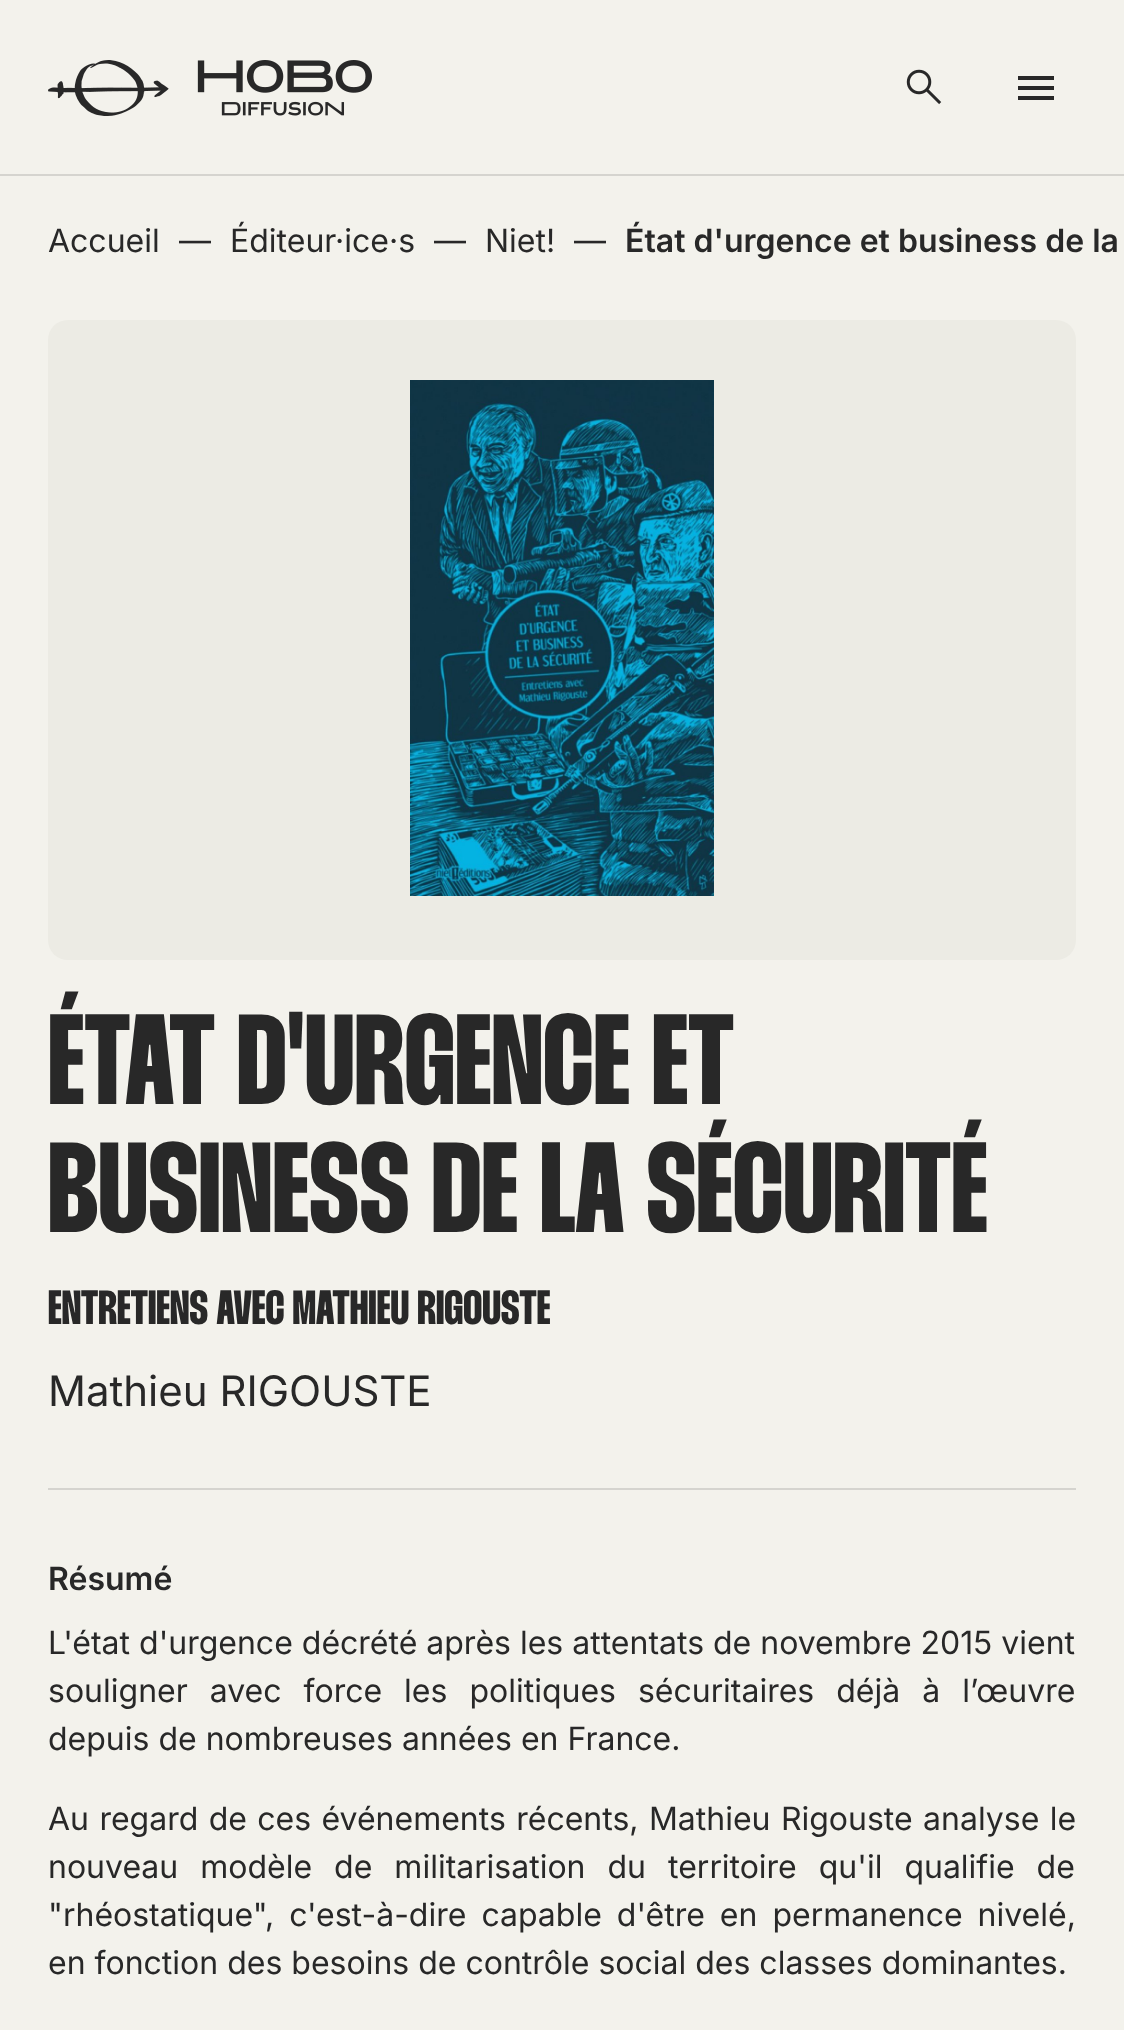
(async () => {
  const canvas = document.querySelector("canvas");
  canvas.width = 1124;
  canvas.height = 2030;
  const ctx = canvas.getContext("2d");
  ctx.miterLimit = 4;
  ctx.fontKerning = "normal";
  async function loadImage(src) {
    const img = new Image();
    img.src = src;
    await img.decode();
    return img;
  }

  ctx.fillStyle = "#f3f2ec";
  ctx.fillRect(0, 0, 1124, 2030);
  ctx.fillStyle = "#d5d4cf";
  ctx.fillRect(0, 174, 1124, 2);
  ctx.drawImage(await loadImage("img/1.png"), 48, 60, 324, 56);
  ctx.drawImage(await loadImage("img/2.png"), 906, 69, 36, 36);
  for (const [x, y, w, h, color] of [
    [1018, 76, 36, 4, "#282828"],
    [1018, 86, 36, 4, "#282828"],
    [1018, 96, 36, 4, "#282828"],
  ]) {
    ctx.fillStyle = color;
    ctx.fillRect(x, y, w, h);
  }
  ctx.fillStyle = "#ecebe4";
  ctx.beginPath();
  ctx.roundRect(48, 320, 1028, 640, 20);
  ctx.fill();
  ctx.drawImage(await loadImage("img/3.png"), 410, 380, 304, 516);
  ctx.fillStyle = "#d5d4cf";
  ctx.fillRect(48, 1488, 1028, 2);
  ctx.font = "32px Inter";
  ctx.fillStyle = "#282828";
  for (const [text, x, y] of [
    ["Accueil", 48, 252],
    ["—", 179, 252],
    ["Éditeur·ice·s", 230, 252],
    ["—", 434, 252],
    ["Niet!", 485, 252],
    ["—", 574, 252],
  ]) {
    ctx.fillText(text, x, y);
  }
  ctx.font = "600 32px Inter";
  ctx.fillText("État d'urgence et business de la", 625, 252);
  ctx.font = "bold 128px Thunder";
  ctx.fillText("ÉTAT D'URGENCE ET", 48, 1104);
  ctx.fillText("BUSINESS DE LA SÉCURITÉ", 48, 1232);
  ctx.font = "bold 48px Thunder";
  ctx.fillText("ENTRETIENS AVEC MATHIEU RIGOUSTE", 48, 1324);
  ctx.font = "42px Inter";
  ctx.fillText("Mathieu RIGOUSTE", 48, 1406);
  ctx.font = "600 32px Inter";
  ctx.fillText("Résumé", 48, 1590);
  ctx.font = "32px Inter";
  ctx.fillText("L'état d'urgence décrété après les attentats de novembre 2015 vient", 48, 1654);
  ctx.wordSpacing = "13px";
  ctx.fillText("souligner avec force les politiques sécuritaires déjà à l’œuvre", 48, 1702);
  ctx.wordSpacing = "0px";
  ctx.fillText("depuis de nombreuses années en France.", 48, 1750);
  ctx.wordSpacing = "1.4px";
  ctx.fillText("Au regard de ces événements récents, Mathieu Rigouste analyse le", 48, 1830);
  ctx.wordSpacing = "13px";
  ctx.fillText("nouveau modèle de militarisation du territoire qu'il qualifie de", 48, 1878);
  ctx.wordSpacing = "6px";
  ctx.fillText("\"rhéostatique\", c'est-à-dire capable d'être en permanence nivelé,", 48, 1926);
  ctx.wordSpacing = "0px";
  ctx.fillText("en fonction des besoins de contrôle social des classes dominantes.", 48, 1974);
})();
